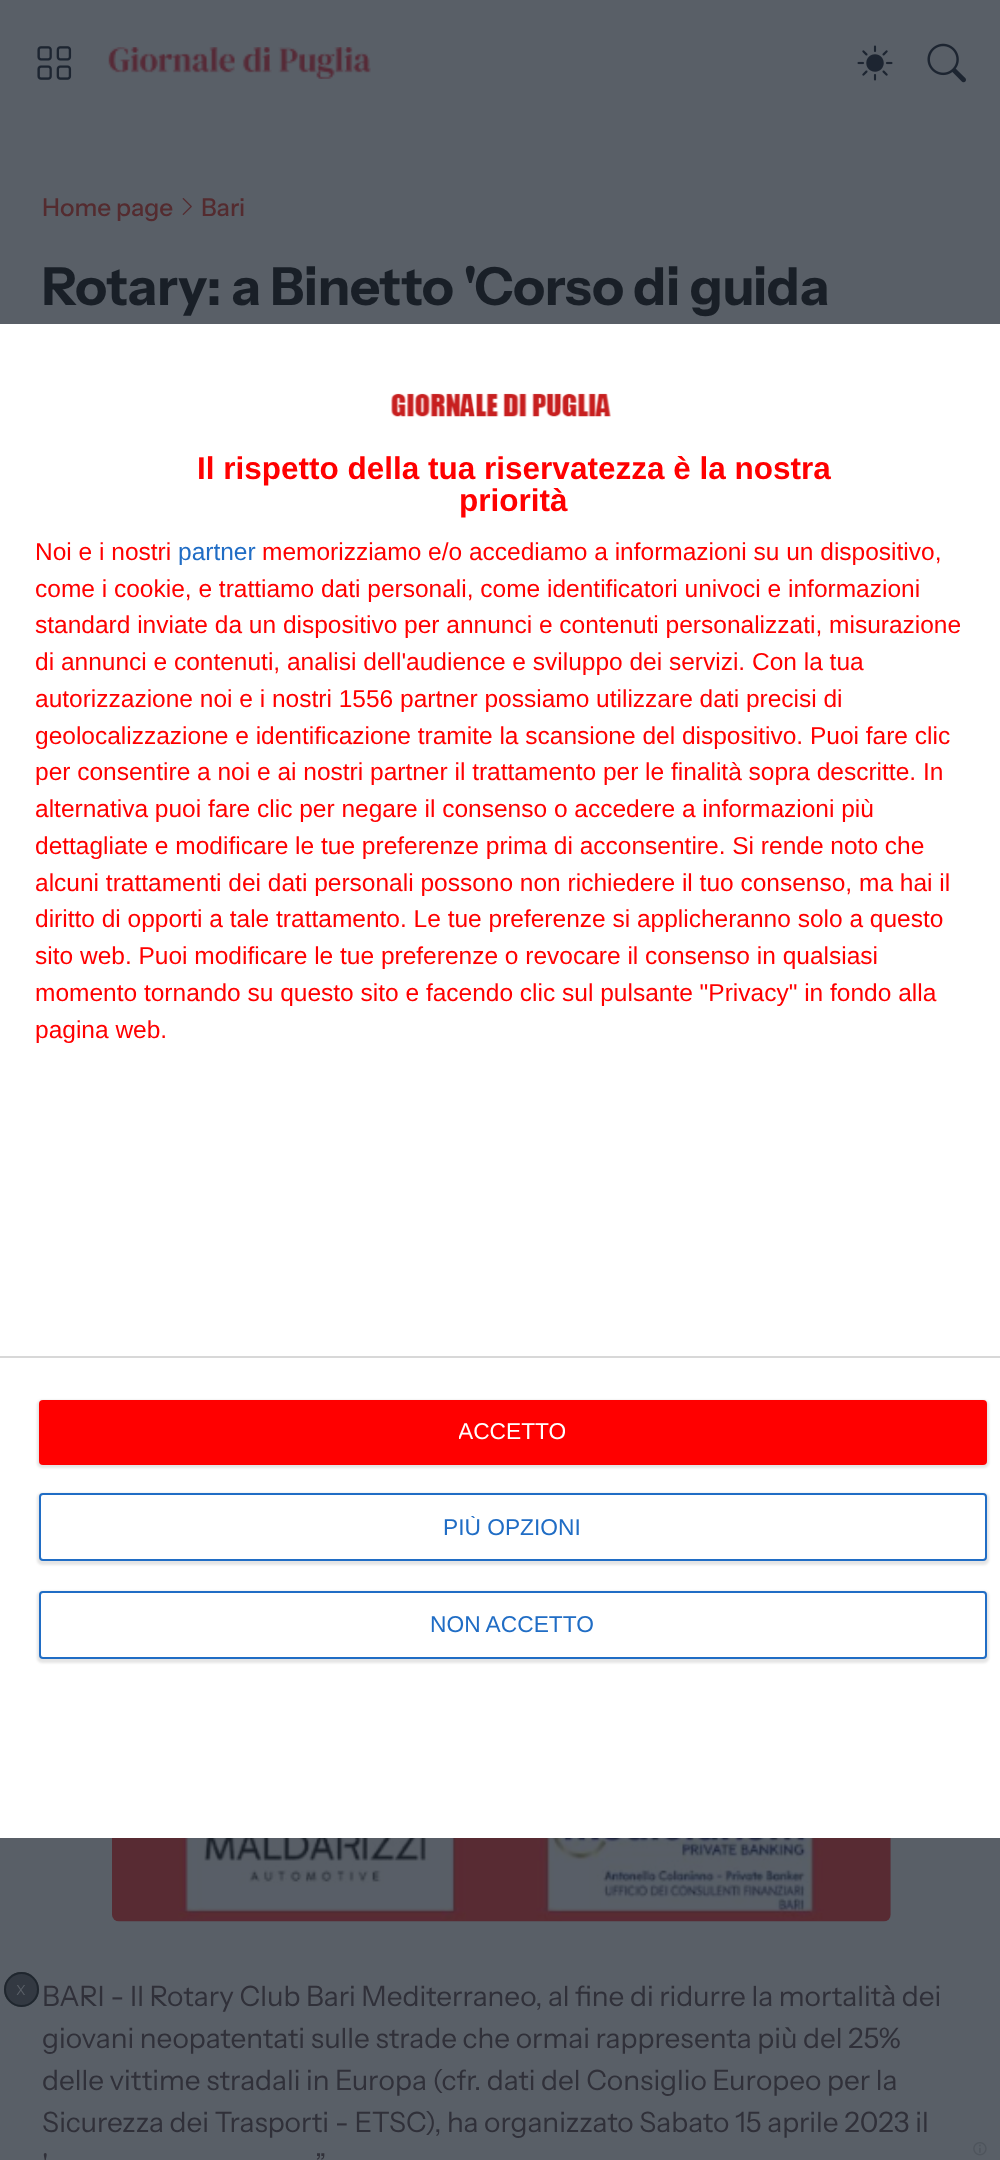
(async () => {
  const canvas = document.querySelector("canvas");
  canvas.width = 1000;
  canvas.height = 2160;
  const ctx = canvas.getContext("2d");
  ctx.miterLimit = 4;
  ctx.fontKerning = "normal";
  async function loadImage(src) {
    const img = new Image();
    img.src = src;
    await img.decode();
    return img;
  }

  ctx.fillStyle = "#595f67";
  ctx.fillRect(0, 0, 1000, 2160);
  ctx.drawImage(await loadImage("img/1.png"), 37, 46, 35, 34);
  ctx.drawImage(await loadImage("img/2.png"), 108, 47, 263, 32);
  ctx.drawImage(await loadImage("img/3.png"), 857, 45, 36, 36);
  ctx.drawImage(await loadImage("img/4.png"), 927, 43, 39, 40);
  ctx.fillStyle = "rgba(89, 95, 103, 0.12)";
  ctx.fillRect(43, 2004, 896, 156);
  ctx.fillStyle = "#333942";
  ctx.beginPath();
  ctx.arc(21.5, 1989.5, 17.5, 0, Math.PI * 2);
  ctx.fill();
  ctx.beginPath();
  ctx.arc(21.5, 1989.5, 16.5, 0, Math.PI * 2);
  ctx.strokeStyle = "rgba(25, 31, 39, 0.73)";
  ctx.lineWidth = 2;
  ctx.stroke();
  ctx.drawImage(await loadImage("img/5.png"), 973, 2142, 14, 14);
  ctx.drawImage(await loadImage("img/6.png"), 182, 198, 10, 17);
  ctx.drawImage(await loadImage("img/7.png"), 112, 1838, 779, 84);
  ctx.fillStyle = "#ffffff";
  ctx.fillRect(0, 324, 1000, 1514);
  ctx.drawImage(await loadImage("img/8.png"), 391, 393, 220, 24);
  ctx.fillStyle = "#d8d8d8";
  ctx.fillRect(0, 1356, 1000, 2);
  ctx.fillStyle = "rgba(0, 0, 0, 0.1)";
  ctx.filter = "blur(1px)";
  ctx.beginPath();
  ctx.roundRect(37, 1400, 952, 68, 5);
  ctx.fill();
  ctx.filter = "none";
  ctx.fillStyle = "#ff0000";
  ctx.beginPath();
  ctx.roundRect(39, 1400, 948, 65, 4);
  ctx.fill();
  ctx.fillStyle = "rgba(0, 0, 0, 0.1)";
  ctx.filter = "blur(1px)";
  ctx.beginPath();
  ctx.roundRect(37, 1493, 952, 72, 5);
  ctx.fill();
  ctx.filter = "none";
  ctx.fillStyle = "#ffffff";
  ctx.beginPath();
  ctx.roundRect(40, 1494, 946, 66, 3);
  ctx.fill();
  ctx.strokeStyle = "#206dc5";
  ctx.stroke();
  ctx.fillStyle = "rgba(0, 0, 0, 0.1)";
  ctx.filter = "blur(1px)";
  ctx.beginPath();
  ctx.roundRect(37, 1591, 952, 72, 5);
  ctx.fill();
  ctx.filter = "none";
  ctx.fillStyle = "#ffffff";
  ctx.beginPath();
  ctx.roundRect(40, 1592, 946, 66, 3);
  ctx.fill();
  ctx.stroke();
  ctx.font = "14px Instrument Sans";
  ctx.fillStyle = "#595f67";
  ctx.fillText("X", 16, 1995);
  ctx.font = "500 24.5px Instrument Sans";
  ctx.fillStyle = "#542b2f";
  ctx.fillText("Home page", 42, 216);
  ctx.fillText("Bari", 201, 216);
  ctx.letterSpacing = "-0.25px";
  ctx.font = "bold 52.5px Instrument Sans";
  ctx.fillStyle = "#191f27";
  ctx.fillText("Rotary: a Binetto 'Corso di guida", 42, 305);
  ctx.letterSpacing = "0px";
  ctx.font = "28px Instrument Sans";
  ctx.fillStyle = "#303039";
  for (const [text, x, y] of [
    ["BARI - Il Rotary Club Bari Mediterraneo, al fine di ridurre la mortalità dei", 42, 2006],
    ["giovani neopatentati sulle strade che ormai rappresenta più del 25%", 42, 2048],
    ["delle vittime stradali in Europa (cfr. dati del Consiglio Europeo per la", 42, 2090],
    ["Sicurezza dei Trasporti - ETSC), ha organizzato Sabato 15 aprile 2023 il", 42, 2132],
    ["'", 42, 2174],
    ["”", 315, 2174],
  ]) {
    ctx.fillText(text, x, y);
  }
  ctx.font = "bold 31.5px Liberation Sans";
  ctx.fillStyle = "#ff0000";
  ctx.fillText("Il rispetto della tua riservatezza è la nostra", 197, 479);
  ctx.fillText("priorità", 459, 511);
  ctx.font = "24.5px Liberation Sans";
  ctx.fillText("Noi e i nostri", 35, 560);
  ctx.fillStyle = "#206dc5";
  ctx.fillText("partner", 178, 560);
  ctx.fillStyle = "#ff0000";
  for (const [text, x, y] of [
    ["memorizziamo e/o accediamo a informazioni su un dispositivo,", 262, 560],
    ["come i cookie, e trattiamo dati personali, come identificatori univoci e informazioni", 35, 597],
    ["standard inviate da un dispositivo per annunci e contenuti personalizzati, misurazione", 35, 633],
    ["di annunci e contenuti, analisi dell'audience e sviluppo dei servizi. Con la tua", 35, 670],
    ["autorizzazione noi e i nostri 1556 partner possiamo utilizzare dati precisi di", 35, 707],
    ["geolocalizzazione e identificazione tramite la scansione del dispositivo. Puoi fare clic", 35, 744],
    ["per consentire a noi e ai nostri partner il trattamento per le finalità sopra descritte. In", 35, 780],
    ["alternativa puoi fare clic per negare il consenso o accedere a informazioni più", 35, 817],
    ["dettagliate e modificare le tue preferenze prima di acconsentire. Si rende noto che", 35, 854],
    ["alcuni trattamenti dei dati personali possono non richiedere il tuo consenso, ma hai il", 35, 891],
    ["diritto di opporti a tale trattamento. Le tue preferenze si applicheranno solo a questo", 35, 927],
    ["sito web. Puoi modificare le tue preferenze o revocare il consenso in qualsiasi", 35, 964],
    ["momento tornando su questo sito e facendo clic sul pulsante \"Privacy\" in fondo alla", 35, 1001],
    ["pagina web.", 35, 1038],
  ]) {
    ctx.fillText(text, x, y);
  }
  ctx.save();
  ctx.beginPath();
  ctx.rect(459, 1421, 106, 23);
  ctx.clip();
  ctx.font = "22.75px Liberation Sans";
  ctx.fillStyle = "#ffffff";
  ctx.fillText("ACCETTO", 458, 1439);
  ctx.restore();
  ctx.save();
  ctx.beginPath();
  ctx.rect(443, 1516, 138, 22);
  ctx.clip();
  ctx.font = "22.75px Liberation Sans";
  ctx.fillStyle = "#206dc5";
  ctx.fillText("PIÙ OPZIONI", 443, 1535);
  ctx.restore();
  ctx.font = "22.75px Liberation Sans";
  ctx.fillStyle = "#206dc5";
  ctx.fillText("NON ACCETTO", 430, 1632);
})();
